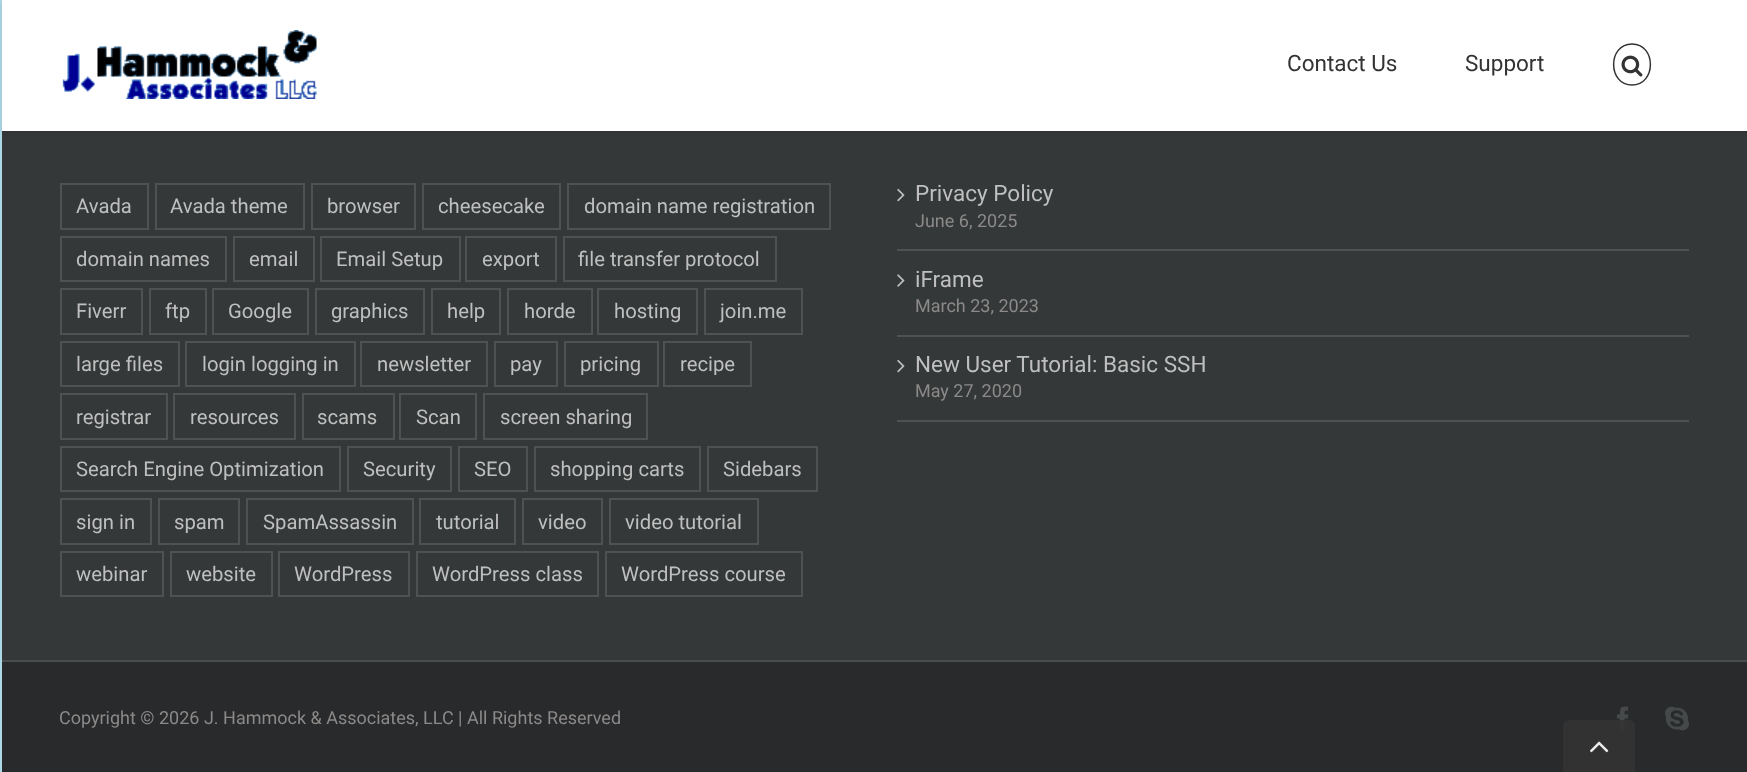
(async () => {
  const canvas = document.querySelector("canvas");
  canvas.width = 1747;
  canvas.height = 772;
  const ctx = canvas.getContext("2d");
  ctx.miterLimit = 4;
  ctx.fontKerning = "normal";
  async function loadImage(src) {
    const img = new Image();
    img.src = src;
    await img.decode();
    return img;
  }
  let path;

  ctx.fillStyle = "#add8e6";
  ctx.fillRect(0, 0, 1747, 772);
  ctx.fillStyle = "#343838";
  ctx.fillRect(2, 131, 1745, 529);
  ctx.fillStyle = "rgba(0, 0, 0, 0.12)";
  ctx.filter = "blur(2px)";
  ctx.beginPath();
  ctx.rect(2, 2, 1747, 130);
  ctx.fill();
  ctx.filter = "none";
  ctx.fillStyle = "#ffffff";
  ctx.fillRect(2, 0, 1745, 131);
  ctx.drawImage(await loadImage("img/1.png"), 62, 30, 255, 69);
  path = new Path2D("M1632 44C1656.5 44 1656.5 85 1632 85C1607.5 85 1607.5 44 1632 44Z");
  ctx.strokeStyle = "#333333";
  ctx.lineWidth = 1.5;
  ctx.stroke(path);
  ctx.drawImage(await loadImage("img/2.png"), 1621, 55, 22, 22);
  ctx.strokeStyle = "#505152";
  ctx.lineWidth = 2;
  ctx.strokeRect(61, 184, 87, 45);
  ctx.strokeRect(156, 184, 148, 45);
  ctx.strokeRect(312, 184, 103, 45);
  ctx.strokeRect(423, 184, 137, 45);
  ctx.strokeRect(568, 184, 262, 45);
  ctx.strokeRect(61, 237, 165, 44);
  ctx.strokeRect(234, 237, 80, 44);
  ctx.strokeRect(321, 237, 139, 44);
  ctx.strokeRect(466, 237, 90, 44);
  ctx.strokeRect(564, 237, 212, 44);
  ctx.strokeRect(61, 289, 81, 45);
  ctx.strokeRect(150, 289, 56, 45);
  ctx.strokeRect(213, 289, 95, 45);
  ctx.strokeRect(316, 289, 108, 45);
  ctx.strokeRect(432, 289, 68, 45);
  ctx.strokeRect(508, 289, 84, 45);
  ctx.strokeRect(598, 289, 99, 45);
  ctx.strokeRect(705, 289, 97, 45);
  ctx.strokeRect(61, 342, 118, 44);
  ctx.strokeRect(186, 342, 169, 44);
  ctx.strokeRect(361, 342, 126, 44);
  ctx.strokeRect(495, 342, 62, 44);
  ctx.strokeRect(565, 342, 93, 44);
  ctx.strokeRect(664, 342, 87, 44);
  ctx.strokeRect(61, 394, 106, 45);
  ctx.strokeRect(174, 394, 121, 45);
  ctx.strokeRect(303, 394, 91, 45);
  ctx.strokeRect(400, 394, 76, 45);
  ctx.strokeRect(484, 394, 163, 45);
  ctx.strokeRect(61, 447, 279, 44);
  ctx.strokeRect(348, 447, 103, 44);
  ctx.strokeRect(459, 447, 68, 44);
  ctx.strokeRect(535, 447, 165, 44);
  ctx.strokeRect(708, 447, 109, 44);
  ctx.strokeRect(61, 499, 90, 45);
  ctx.strokeRect(159, 499, 80, 45);
  ctx.strokeRect(247, 499, 166, 45);
  ctx.strokeRect(420, 499, 95, 45);
  ctx.strokeRect(523, 499, 79, 45);
  ctx.strokeRect(610, 499, 148, 45);
  ctx.strokeRect(61, 552, 102, 44);
  ctx.strokeRect(171, 552, 101, 44);
  ctx.strokeRect(279, 552, 130, 44);
  ctx.strokeRect(417, 552, 181, 44);
  ctx.strokeRect(606, 552, 196, 44);
  ctx.fillStyle = "#505152";
  ctx.fillRect(897, 249, 792, 2);
  ctx.drawImage(await loadImage("img/3.png"), 897, 188, 8, 14);
  ctx.fillRect(897, 335, 792, 2);
  ctx.drawImage(await loadImage("img/4.png"), 897, 274, 8, 13);
  ctx.fillRect(897, 420, 792, 2);
  ctx.drawImage(await loadImage("img/3.png"), 897, 359, 8, 14);
  ctx.fillStyle = "#282a2b";
  ctx.fillRect(2, 662, 1745, 110);
  ctx.fillStyle = "#4b4c4d";
  ctx.fillRect(2, 660, 1745, 2);
  ctx.drawImage(await loadImage("img/5.png"), 1617, 706, 12, 25);
  ctx.drawImage(await loadImage("img/6.png"), 1665, 706, 24, 25);
  ctx.fillStyle = "rgba(51, 51, 51, 0.9)";
  path = new Path2D("M1569 720H1629C1632.5 720 1635 722.5 1635 726V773H1563V726C1563 722.5 1565.5 720 1569 720Z");
  ctx.fill(path);
  ctx.drawImage(await loadImage("img/7.png"), 1590, 741, 19, 12);
  ctx.font = "22.5px Roboto";
  ctx.fillStyle = "#333333";
  ctx.fillText("Contact Us", 1287, 71);
  ctx.fillText("Support", 1465, 71);
  ctx.font = "20.25px Roboto";
  ctx.fillStyle = "#bfbfbf";
  for (const [text, x, y] of [
    ["Avada", 76, 213],
    ["Avada theme", 170, 213],
    ["browser", 327, 213],
    ["cheesecake", 438, 213],
    ["domain name registration", 584, 213],
    ["domain names", 76, 266],
    ["email", 249, 266],
    ["Email Setup", 336, 266],
    ["export", 482, 266],
    ["file transfer protocol", 578, 266],
    ["Fiverr", 76, 318],
    ["ftp", 165, 318],
    ["Google", 228, 318],
    ["graphics", 331, 318],
    ["help", 447, 318],
    ["horde", 524, 318],
    ["hosting", 614, 318],
    ["join.me", 720, 318],
    ["large files", 76, 371],
    ["login logging in", 202, 371],
    ["newsletter", 377, 371],
    ["pay", 510, 371],
    ["pricing", 580, 371],
    ["recipe", 680, 371],
    ["registrar", 76, 424],
    ["resources", 190, 424],
    ["scams", 317, 424],
    ["Scan", 416, 424],
    ["screen sharing", 500, 424],
    ["Search Engine Optimization", 76, 476],
    ["Security", 363, 476],
    ["SEO", 474, 476],
    ["shopping carts", 550, 476],
    ["Sidebars", 723, 476],
    ["sign in", 76, 529],
    ["spam", 174, 529],
    ["SpamAssassin", 263, 529],
    ["tutorial", 436, 529],
    ["video", 538, 529],
    ["video tutorial", 625, 529],
    ["webinar", 76, 581],
    ["website", 186, 581],
    ["WordPress", 294, 581],
    ["WordPress class", 432, 581],
    ["WordPress course", 621, 581],
  ]) {
    ctx.fillText(text, x, y);
  }
  ctx.font = "22.5px Roboto";
  ctx.fillText("Privacy Policy", 915, 201);
  ctx.font = "18px Roboto";
  ctx.fillStyle = "#8c8989";
  ctx.fillText("June 6, 2025", 915, 227);
  ctx.font = "22.5px Roboto";
  ctx.fillStyle = "#bfbfbf";
  ctx.fillText("iFrame", 915, 287);
  ctx.font = "18px Roboto";
  ctx.fillStyle = "#8c8989";
  ctx.fillText("March 23, 2023", 915, 312);
  ctx.font = "22.5px Roboto";
  ctx.fillStyle = "#bfbfbf";
  ctx.fillText("New User Tutorial: Basic SSH", 915, 372);
  ctx.font = "18px Roboto";
  ctx.fillStyle = "#8c8989";
  ctx.fillText("May 27, 2020", 915, 397);
  ctx.fillText("Copyright © 2026 J. Hammock & Associates, LLC | All Rights Reserved", 59, 724);
})();
